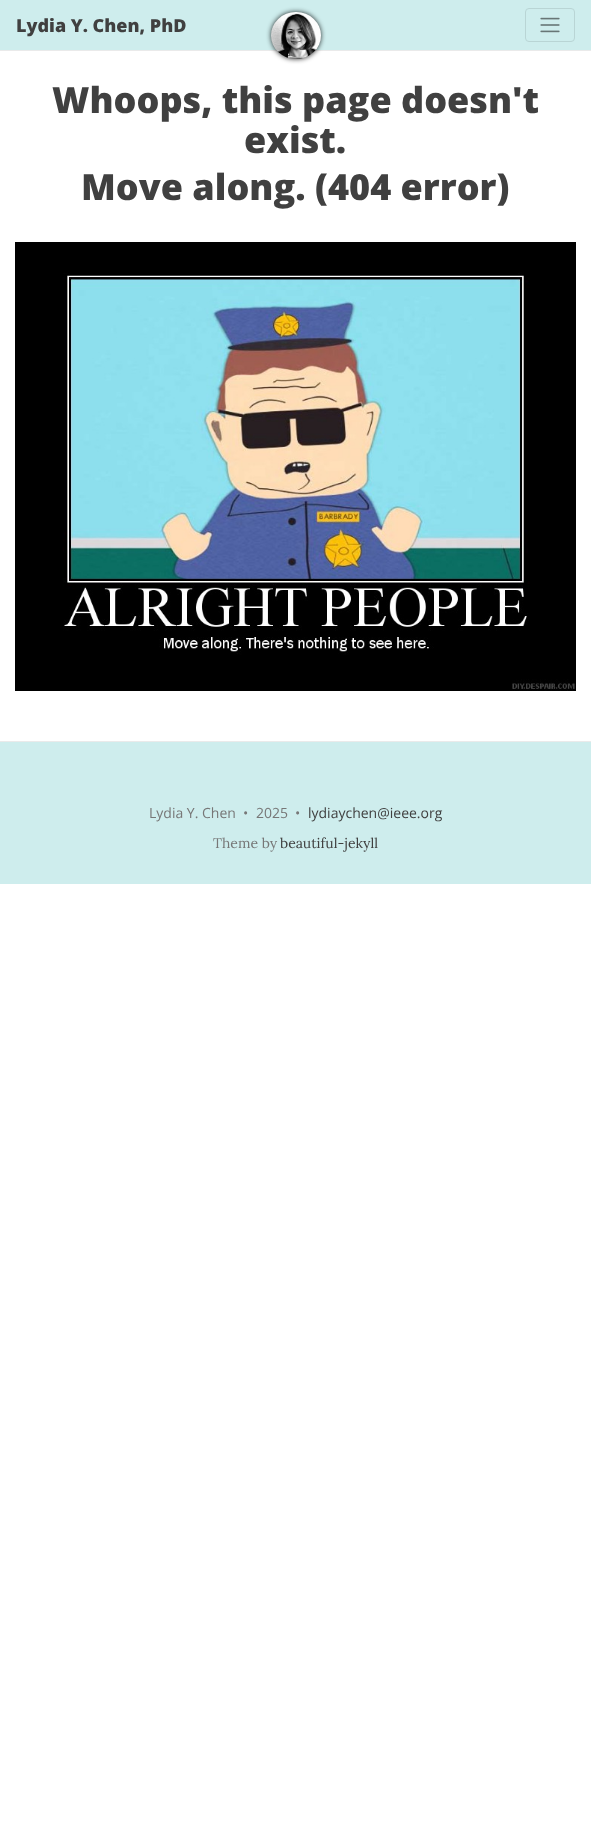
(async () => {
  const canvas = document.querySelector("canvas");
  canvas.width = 591;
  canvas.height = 1832;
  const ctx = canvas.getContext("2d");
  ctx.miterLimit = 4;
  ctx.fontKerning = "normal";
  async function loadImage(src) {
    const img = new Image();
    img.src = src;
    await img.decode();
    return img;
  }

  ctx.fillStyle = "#ffffff";
  ctx.fillRect(0, 0, 591, 1832);
  ctx.fillStyle = "#ceeded";
  ctx.fillRect(0, 0, 591, 50);
  ctx.fillStyle = "#eaeaea";
  ctx.fillRect(0, 50, 591, 1);
  ctx.fillStyle = "rgba(0, 0, 0, 0.8)";
  ctx.filter = "blur(2.5px)";
  ctx.beginPath();
  ctx.roundRect(271, 12, 50, 47, 23.5);
  ctx.fill();
  ctx.filter = "none";
  ctx.drawImage(await loadImage("img/1.png"), 271, 12, 50, 47);
  ctx.beginPath();
  ctx.roundRect(525.5, 8.5, 49, 33, 3.5);
  ctx.strokeStyle = "#b9d5d5";
  ctx.stroke();
  ctx.drawImage(await loadImage("img/2.png"), 540, 17, 20, 16);
  ctx.drawImage(await loadImage("img/3.png"), 15, 242, 561, 449);
  ctx.fillStyle = "#ceeded";
  ctx.fillRect(0, 742, 591, 142);
  ctx.fillStyle = "#eaeaea";
  ctx.fillRect(0, 741, 591, 1);
  ctx.font = "800 18px Open Sans";
  ctx.fillStyle = "#404040";
  ctx.fillText("Lydia Y. Chen, PhD", 16, 32);
  ctx.font = "800 36px Open Sans";
  for (const [text, x, y] of [
    ["Whoops, this page doesn't", 52, 113],
    ["exist.", 244, 153],
    ["Move along. (404 error)", 81, 200],
  ]) {
    ctx.fillText(text, x, y);
  }
  ctx.font = "14px Open Sans";
  ctx.fillStyle = "#777777";
  for (const [text, x, y] of [
    ["Lydia Y. Chen", 149, 818],
    ["•", 243, 818],
    ["2025", 256, 818],
    ["•", 295, 818],
  ]) {
    ctx.fillText(text, x, y);
  }
  ctx.fillStyle = "#404040";
  ctx.fillText("lydiaychen@ieee.org", 308, 818);
  ctx.font = "14px Lora";
  ctx.fillStyle = "#777777";
  ctx.fillText("Theme by", 213, 848);
  ctx.fillStyle = "#404040";
  ctx.fillText("beautiful-jekyll", 280, 848);
})();
